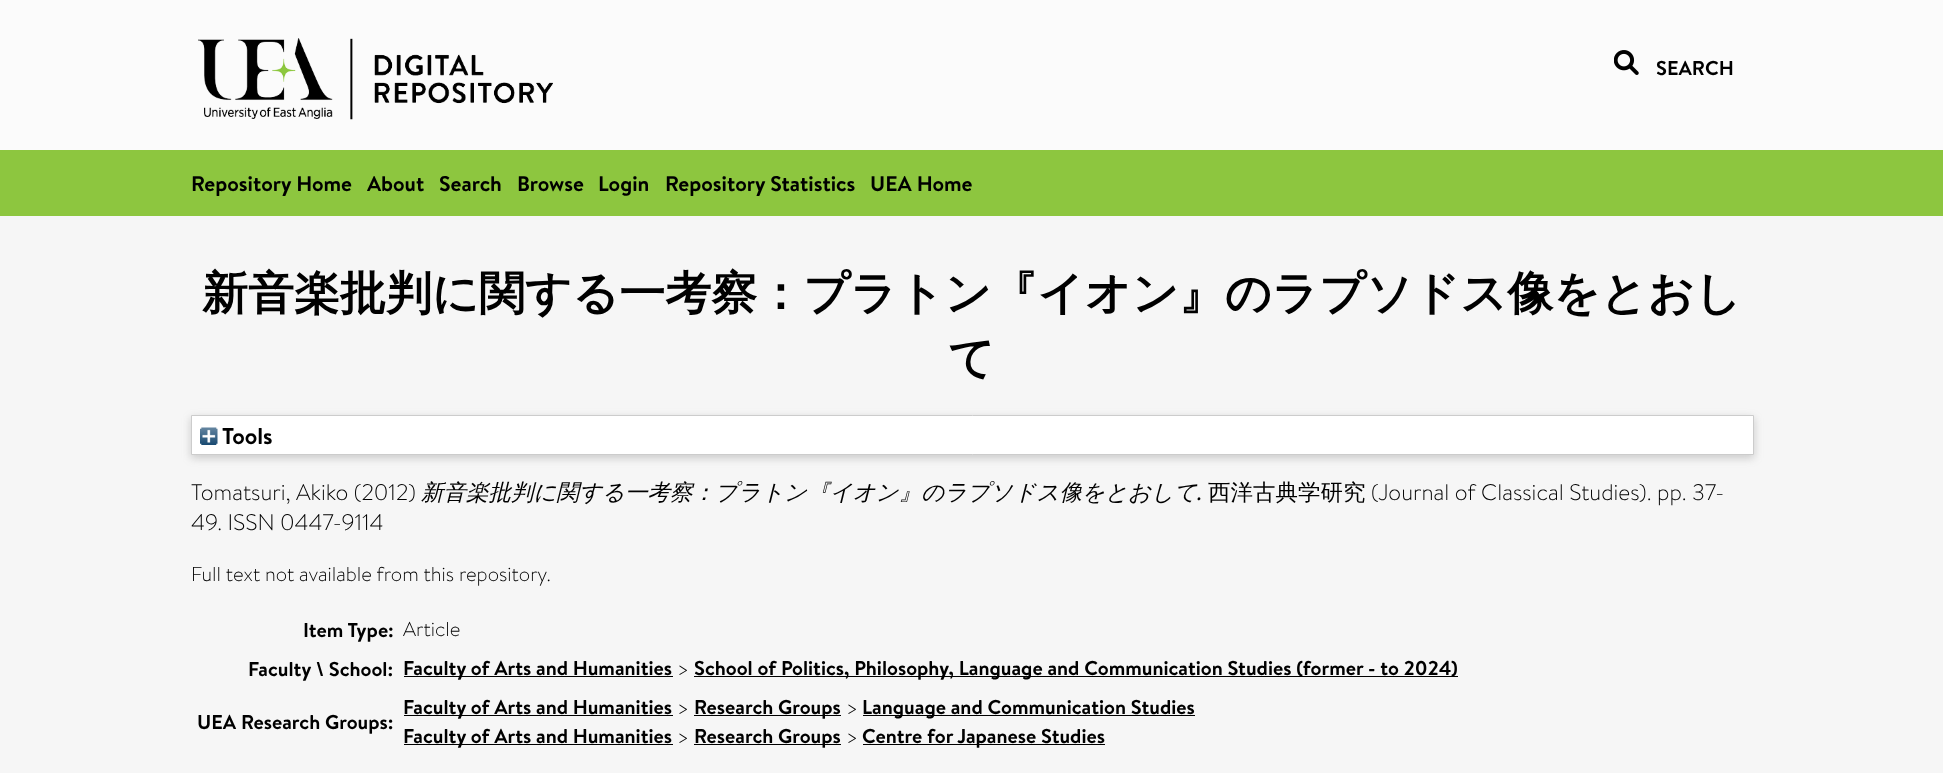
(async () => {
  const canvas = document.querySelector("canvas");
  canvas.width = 1943;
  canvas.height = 773;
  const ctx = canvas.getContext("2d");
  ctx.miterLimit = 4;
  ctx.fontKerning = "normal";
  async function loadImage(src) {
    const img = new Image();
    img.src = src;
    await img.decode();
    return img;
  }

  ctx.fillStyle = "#f6f6f6";
  ctx.fillRect(0, 0, 1943, 773);
  ctx.fillStyle = "#fbfbfb";
  ctx.fillRect(0, 0, 1943, 150);
  ctx.drawImage(await loadImage("img/1.png"), 198, 38, 355, 82);
  ctx.drawImage(await loadImage("img/2.png"), 1614, 50, 25, 25);
  ctx.fillStyle = "#8dc63f";
  ctx.fillRect(0, 150, 1943, 66);
  ctx.fillStyle = "rgba(100, 100, 100, 0.3)";
  ctx.filter = "blur(4px)";
  ctx.beginPath();
  ctx.rect(191, 418, 1563, 40);
  ctx.fill();
  ctx.filter = "none";
  ctx.fillStyle = "#ffffff";
  ctx.beginPath();
  ctx.rect(191.5, 415.5, 1562, 39);
  ctx.fill();
  ctx.strokeStyle = "#cccccc";
  ctx.stroke();
  ctx.drawImage(await loadImage("img/3.png"), 200, 427, 18, 18);
  for (const [x, y, w, h, color] of [
    [404, 676, 269, 1, "#000000"],
    [694, 676, 764, 1, "#000000"],
    [404, 715, 269, 1, "#000000"],
    [694, 715, 147, 1, "#000000"],
    [863, 715, 332, 1, "#000000"],
    [404, 744, 269, 1, "#000000"],
    [694, 744, 147, 1, "#000000"],
    [863, 744, 242, 1, "#000000"],
  ]) {
    ctx.fillStyle = color;
    ctx.fillRect(x, y, w, h);
  }
  ctx.font = "bold 20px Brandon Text";
  ctx.fillText("SEARCH", 1656, 75);
  ctx.font = "bold 21.25px Brandon Text";
  for (const [text, x, y] of [
    ["Repository Home", 191, 191],
    ["About", 367, 191],
    ["Search", 439, 191],
    ["Browse", 517, 191],
    ["Login", 598, 191],
    ["Repository Statistics", 665, 191],
    ["UEA Home", 870, 191],
  ]) {
    ctx.fillText(text, x, y);
  }
  ctx.font = "bold 46px WenQuanYi Zen Hei";
  ctx.fillText("新音楽批判に関する一考察：プラトン『イオン』のラプソドス像をとおし", 202, 309);
  ctx.fillText("て", 948, 374);
  ctx.font = "bold 23px Brandon Text";
  ctx.fillText("Tools", 222, 444);
  ctx.font = "300 22.5px Brandon Text";
  ctx.fillText("Tomatsuri, Akiko (2012)", 191, 500);
  ctx.font = "italic 500 22.5px WenQuanYi Zen Hei";
  ctx.fillText("新音楽批判に関する一考察：プラトン『イオン』のラプソドス像をとおして", 421, 500);
  ctx.font = "italic 22.5px Brandon Text";
  ctx.fillText(".", 1197, 500);
  ctx.font = "500 22.5px WenQuanYi Zen Hei";
  ctx.fillText("西洋古典学研究", 1208, 500);
  ctx.font = "300 22.5px Brandon Text";
  for (const [text, x, y] of [
    ["(Journal of Classical Studies).", 1371, 500],
    ["pp. 37-", 1657, 500],
    ["49. ISSN 0447-9114", 191, 530],
  ]) {
    ctx.fillText(text, x, y);
  }
  ctx.font = "300 20px Brandon Text";
  ctx.fillText("Full text not available from this repository.", 191, 581);
  ctx.font = "bold 20px Brandon Text";
  ctx.fillText("Item Type:", 303, 637);
  ctx.font = "300 20px Brandon Text";
  ctx.fillText("Article", 403, 636);
  ctx.font = "bold 20px Brandon Text";
  ctx.fillText("Faculty \\ School:", 248, 676);
  ctx.fillText("Faculty of Arts and Humanities", 403, 675);
  ctx.font = "300 20px Brandon Text";
  ctx.fillText(">", 677, 675);
  ctx.font = "bold 20px Brandon Text";
  for (const [text, x, y] of [
    ["School of Politics, Philosophy, Language and Communication Studies (former - to 2024)", 694, 675],
    ["UEA Research Groups:", 197, 729],
    ["Faculty of Arts and Humanities", 403, 714],
  ]) {
    ctx.fillText(text, x, y);
  }
  ctx.font = "300 20px Brandon Text";
  ctx.fillText(">", 677, 714);
  ctx.font = "bold 20px Brandon Text";
  ctx.fillText("Research Groups", 694, 714);
  ctx.font = "300 20px Brandon Text";
  ctx.fillText(">", 846, 714);
  ctx.font = "bold 20px Brandon Text";
  ctx.fillText("Language and Communication Studies", 862, 714);
  ctx.fillText("Faculty of Arts and Humanities", 403, 743);
  ctx.font = "300 20px Brandon Text";
  ctx.fillText(">", 677, 743);
  ctx.font = "bold 20px Brandon Text";
  ctx.fillText("Research Groups", 694, 743);
  ctx.font = "300 20px Brandon Text";
  ctx.fillText(">", 846, 743);
  ctx.font = "bold 20px Brandon Text";
  ctx.fillText("Centre for Japanese Studies", 862, 743);
})();
